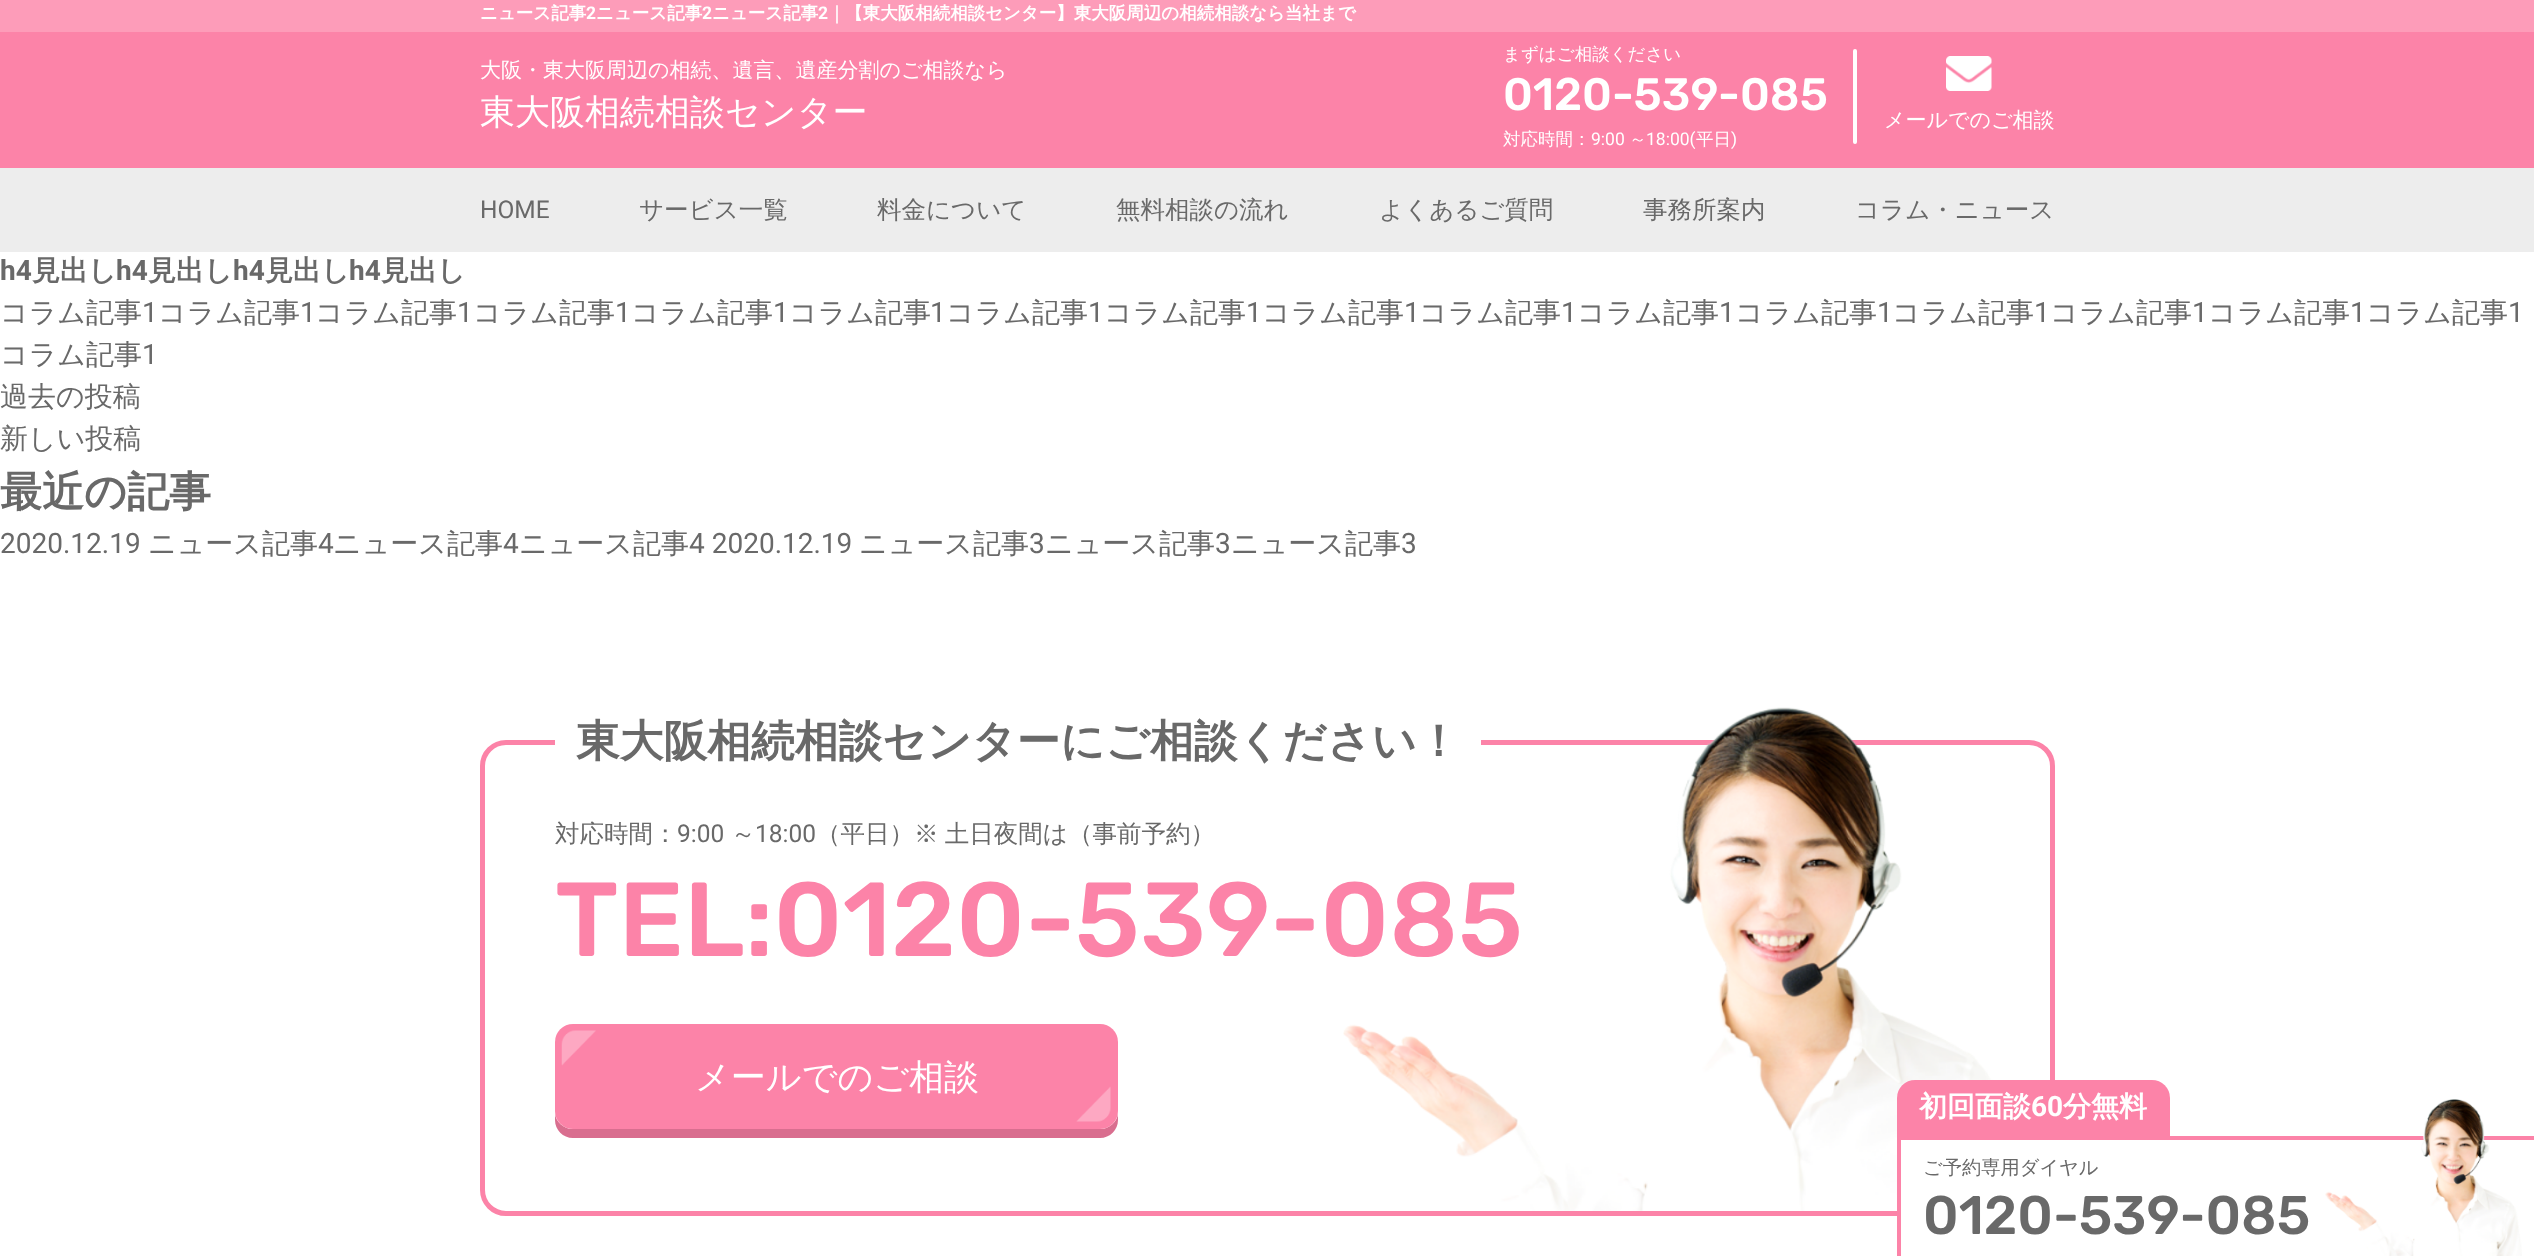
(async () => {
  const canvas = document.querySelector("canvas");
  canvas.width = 2534;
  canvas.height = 1256;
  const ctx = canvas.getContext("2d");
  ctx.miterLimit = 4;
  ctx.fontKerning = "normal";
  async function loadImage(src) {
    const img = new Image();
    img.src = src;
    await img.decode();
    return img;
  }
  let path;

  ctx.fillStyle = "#ffffff";
  ctx.fillRect(0, 0, 2534, 1256);
  ctx.fillStyle = "#fc83a8";
  ctx.fillRect(0, 32, 2534, 136);
  ctx.fillStyle = "#fd9cb9";
  ctx.fillRect(0, 0, 2534, 32);
  ctx.fillStyle = "#ffffff";
  ctx.beginPath();
  ctx.roundRect(1853, 49, 4, 95, 2);
  ctx.fill();
  ctx.drawImage(await loadImage("img/1.png"), 1946, 56, 46, 35);
  ctx.fillStyle = "#ededed";
  ctx.fillRect(0, 168, 2534, 84);
  ctx.beginPath();
  ctx.roundRect(482.5, 742.5, 1570, 471, 23.5);
  ctx.strokeStyle = "#fc83a8";
  ctx.lineWidth = 5;
  ctx.stroke();
  ctx.fillStyle = "#ffffff";
  ctx.fillRect(555, 740, 926, 5);
  ctx.fillStyle = "#d96e8f";
  path = new Path2D("M555 1114V1120C555 1130 563 1138 573 1138H1100C1110 1138 1118 1130 1118 1120V1114C1117 1122 1109 1129 1101 1129H572C564 1129 556 1122 555 1114Z");
  ctx.fill(path);
  ctx.fillStyle = "#fc83a8";
  ctx.beginPath();
  ctx.roundRect(555, 1024, 563, 105, 18);
  ctx.fill();
  ctx.font = "bold 17.5px WenQuanYi Zen Hei";
  ctx.fillStyle = "#ffffff";
  ctx.fillText("ニュース記事", 480, 19);
  ctx.font = "bold 17.5px Roboto";
  ctx.fillText("2", 586, 19);
  ctx.font = "bold 17.5px WenQuanYi Zen Hei";
  ctx.fillText("ニュース記事", 596, 19);
  ctx.font = "bold 17.5px Roboto";
  ctx.fillText("2", 702, 19);
  ctx.font = "bold 17.5px WenQuanYi Zen Hei";
  ctx.fillText("ニュース記事", 712, 19);
  ctx.font = "bold 17.5px Roboto";
  ctx.fillText("2", 818, 19);
  ctx.font = "bold 17.5px WenQuanYi Zen Hei";
  ctx.fillText("｜【東大阪相続相談センター】東大阪周辺の相続相談なら当社まで", 828, 19);
  ctx.font = "500 21px WenQuanYi Zen Hei";
  ctx.fillText("大阪・東大阪周辺の相続、遺言、遺産分割のご相談なら", 480, 77);
  ctx.font = "500 35px WenQuanYi Zen Hei";
  ctx.fillText("東大阪相続相談センター", 480, 124);
  ctx.font = "500 17.5px WenQuanYi Zen Hei";
  ctx.fillText("まずはご相談ください", 1503, 60);
  ctx.font = "500 45.5px Rubik";
  ctx.fillText("0120-539-085", 1503, 110);
  ctx.font = "500 17.5px WenQuanYi Zen Hei";
  ctx.fillText("対応時間：", 1503, 145);
  ctx.font = "17.5px Roboto";
  ctx.fillText("9:00", 1591, 145);
  ctx.font = "500 17.5px WenQuanYi Zen Hei";
  ctx.fillText("～", 1629, 145);
  ctx.font = "17.5px Roboto";
  ctx.fillText("18:00(", 1646, 145);
  ctx.font = "500 17.5px WenQuanYi Zen Hei";
  ctx.fillText("平日", 1696, 145);
  ctx.font = "17.5px Roboto";
  ctx.fillText(")", 1731, 145);
  ctx.font = "500 21px WenQuanYi Zen Hei";
  ctx.fillText("メールでのご相談", 1884, 127);
  ctx.font = "24.5px Roboto";
  ctx.fillStyle = "#696969";
  ctx.fillText("HOME", 480, 218);
  ctx.font = "500 24.5px WenQuanYi Zen Hei";
  for (const [text, x, y] of [
    ["サービス一覧", 639, 218],
    ["料金について", 877, 218],
    ["無料相談の流れ", 1116, 218],
    ["よくあるご質問", 1379, 218],
    ["事務所案内", 1643, 218],
    ["コラム・ニュース", 1855, 218],
  ]) {
    ctx.fillText(text, x, y);
  }
  ctx.font = "bold 28px Roboto";
  ctx.fillText("h4", 0, 280);
  ctx.font = "bold 28px WenQuanYi Zen Hei";
  ctx.fillText("見出し", 32, 280);
  ctx.font = "bold 28px Roboto";
  ctx.fillText("h4", 116, 280);
  ctx.font = "bold 28px WenQuanYi Zen Hei";
  ctx.fillText("見出し", 148, 280);
  ctx.font = "bold 28px Roboto";
  ctx.fillText("h4", 233, 280);
  ctx.font = "bold 28px WenQuanYi Zen Hei";
  ctx.fillText("見出し", 265, 280);
  ctx.font = "bold 28px Roboto";
  ctx.fillText("h4", 349, 280);
  ctx.font = "bold 28px WenQuanYi Zen Hei";
  ctx.fillText("見出し", 381, 280);
  ctx.font = "500 28px WenQuanYi Zen Hei";
  ctx.fillText("コラム記事", 0, 322);
  ctx.font = "28px Roboto";
  ctx.fillText("1", 142, 322);
  ctx.font = "500 28px WenQuanYi Zen Hei";
  ctx.fillText("コラム記事", 158, 322);
  ctx.font = "28px Roboto";
  ctx.fillText("1", 300, 322);
  ctx.font = "500 28px WenQuanYi Zen Hei";
  ctx.fillText("コラム記事", 315, 322);
  ctx.font = "28px Roboto";
  ctx.fillText("1", 457, 322);
  ctx.font = "500 28px WenQuanYi Zen Hei";
  ctx.fillText("コラム記事", 473, 322);
  ctx.font = "28px Roboto";
  ctx.fillText("1", 615, 322);
  ctx.font = "500 28px WenQuanYi Zen Hei";
  ctx.fillText("コラム記事", 631, 322);
  ctx.font = "28px Roboto";
  ctx.fillText("1", 773, 322);
  ctx.font = "500 28px WenQuanYi Zen Hei";
  ctx.fillText("コラム記事", 789, 322);
  ctx.font = "28px Roboto";
  ctx.fillText("1", 930, 322);
  ctx.font = "500 28px WenQuanYi Zen Hei";
  ctx.fillText("コラム記事", 946, 322);
  ctx.font = "28px Roboto";
  ctx.fillText("1", 1088, 322);
  ctx.font = "500 28px WenQuanYi Zen Hei";
  ctx.fillText("コラム記事", 1104, 322);
  ctx.font = "28px Roboto";
  ctx.fillText("1", 1246, 322);
  ctx.font = "500 28px WenQuanYi Zen Hei";
  ctx.fillText("コラム記事", 1262, 322);
  ctx.font = "28px Roboto";
  ctx.fillText("1", 1404, 322);
  ctx.font = "500 28px WenQuanYi Zen Hei";
  ctx.fillText("コラム記事", 1419, 322);
  ctx.font = "28px Roboto";
  ctx.fillText("1", 1561, 322);
  ctx.font = "500 28px WenQuanYi Zen Hei";
  ctx.fillText("コラム記事", 1577, 322);
  ctx.font = "28px Roboto";
  ctx.fillText("1", 1719, 322);
  ctx.font = "500 28px WenQuanYi Zen Hei";
  ctx.fillText("コラム記事", 1735, 322);
  ctx.font = "28px Roboto";
  ctx.fillText("1", 1877, 322);
  ctx.font = "500 28px WenQuanYi Zen Hei";
  ctx.fillText("コラム記事", 1892, 322);
  ctx.font = "28px Roboto";
  ctx.fillText("1", 2034, 322);
  ctx.font = "500 28px WenQuanYi Zen Hei";
  ctx.fillText("コラム記事", 2050, 322);
  ctx.font = "28px Roboto";
  ctx.fillText("1", 2192, 322);
  ctx.font = "500 28px WenQuanYi Zen Hei";
  ctx.fillText("コラム記事", 2208, 322);
  ctx.font = "28px Roboto";
  ctx.fillText("1", 2350, 322);
  ctx.font = "500 28px WenQuanYi Zen Hei";
  ctx.fillText("コラム記事", 2366, 322);
  ctx.font = "28px Roboto";
  ctx.fillText("1", 2508, 322);
  ctx.font = "500 28px WenQuanYi Zen Hei";
  ctx.fillText("コラム記事", 0, 364);
  ctx.font = "28px Roboto";
  ctx.fillText("1", 142, 364);
  ctx.font = "500 28px WenQuanYi Zen Hei";
  ctx.fillText("過去の投稿", 0, 406);
  ctx.fillText("新しい投稿", 0, 448);
  ctx.font = "bold 42px WenQuanYi Zen Hei";
  ctx.fillText("最近の記事", 0, 506);
  ctx.font = "28px Roboto";
  ctx.fillText("2020.12.19", 0, 553);
  ctx.font = "500 28px WenQuanYi Zen Hei";
  ctx.fillText("ニュース記事", 148, 553);
  ctx.font = "28px Roboto";
  ctx.fillText("4", 318, 553);
  ctx.font = "500 28px WenQuanYi Zen Hei";
  ctx.fillText("ニュース記事", 333, 553);
  ctx.font = "28px Roboto";
  ctx.fillText("4", 503, 553);
  ctx.font = "500 28px WenQuanYi Zen Hei";
  ctx.fillText("ニュース記事", 519, 553);
  ctx.font = "28px Roboto";
  ctx.fillText("4 2020.12.19", 689, 553);
  ctx.font = "500 28px WenQuanYi Zen Hei";
  ctx.fillText("ニュース記事", 859, 553);
  ctx.font = "28px Roboto";
  ctx.fillText("3", 1029, 553);
  ctx.font = "500 28px WenQuanYi Zen Hei";
  ctx.fillText("ニュース記事", 1045, 553);
  ctx.font = "28px Roboto";
  ctx.fillText("3", 1215, 553);
  ctx.font = "500 28px WenQuanYi Zen Hei";
  ctx.fillText("ニュース記事", 1231, 553);
  ctx.font = "28px Roboto";
  ctx.fillText("3", 1401, 553);
  ctx.font = "bold 43.75px WenQuanYi Zen Hei";
  ctx.fillText("東大阪相続相談センターにご相談ください！", 576, 756);
  ctx.font = "500 24.5px WenQuanYi Zen Hei";
  ctx.fillText("対応時間：", 555, 842);
  ctx.font = "24.5px Roboto";
  ctx.fillText("9:00", 677, 842);
  ctx.font = "500 24.5px WenQuanYi Zen Hei";
  ctx.fillText("～", 731, 842);
  ctx.font = "24.5px Roboto";
  ctx.fillText("18:00", 755, 842);
  ctx.font = "500 24.5px WenQuanYi Zen Hei";
  ctx.fillText("（平日）", 816, 842);
  ctx.wordSpacing = "-1px";
  ctx.fillText("※ 土日夜間は（事前予約）", 914, 842);
  ctx.wordSpacing = "0px";
  ctx.font = "500 105px Rubik";
  ctx.fillStyle = "#fc83a8";
  ctx.fillText("TEL:0120-539-085", 555, 956);
  ctx.drawImage(await loadImage("img/2.png"), 1343, 707, 650, 504);
  ctx.font = "500 35px WenQuanYi Zen Hei";
  ctx.fillStyle = "#ffffff";
  ctx.fillText("メールでのご相談", 695, 1089);
  ctx.drawImage(await loadImage("img/3.png"), 561, 1030, 550, 92);
  ctx.fillStyle = "#fc83a8";
  ctx.beginPath();
  ctx.roundRect(1897, 1080, 273, 56, [18, 18, 0, 0]);
  ctx.fill();
  ctx.font = "bold 28px WenQuanYi Zen Hei";
  ctx.fillStyle = "#ffffff";
  ctx.fillText("初回面談", 1919, 1116);
  ctx.font = "bold 28px Roboto";
  ctx.fillText("60", 2031, 1116);
  ctx.font = "bold 28px WenQuanYi Zen Hei";
  ctx.fillText("分無料", 2063, 1116);
  for (const [x, y, w, h, color] of [
    [1901, 1140, 154, 76, "#ffffff"],
    [1897, 1136, 637, 4, "#fc83a8"],
    [1897, 1136, 4, 120, "#fc83a8"],
  ]) {
    ctx.fillStyle = color;
    ctx.fillRect(x, y, w, h);
  }
  ctx.font = "500 19.25px WenQuanYi Zen Hei";
  ctx.fillStyle = "#696969";
  ctx.fillText("ご予約専用ダイヤル", 1923, 1174);
  ctx.drawImage(await loadImage("img/4.png"), 2325, 1099, 197, 157);
  ctx.font = "500 54.25px Rubik";
  ctx.fillText("0120-539-085", 1923, 1234);
})();
